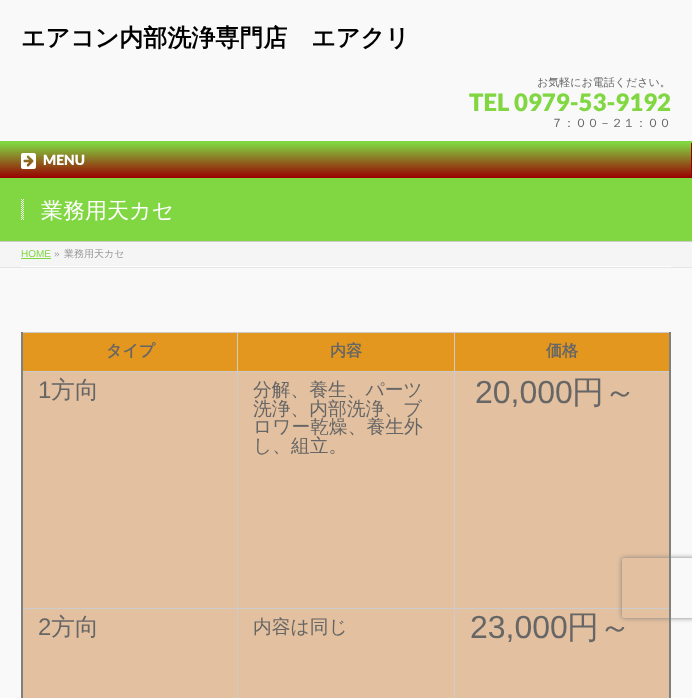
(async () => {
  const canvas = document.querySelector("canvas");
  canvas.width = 692;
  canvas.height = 698;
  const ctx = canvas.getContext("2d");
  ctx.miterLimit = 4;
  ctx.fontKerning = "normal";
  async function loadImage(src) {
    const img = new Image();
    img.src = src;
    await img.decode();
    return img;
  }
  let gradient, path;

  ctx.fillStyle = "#f9f9f9";
  ctx.fillRect(0, 0, 692, 698);
  ctx.fillStyle = "#81d742";
  ctx.fillRect(0, 141, 692, 2);
  gradient = ctx.createLinearGradient(346, 143, 346, 178);
  gradient.addColorStop(0, "#81d742");
  gradient.addColorStop(1, "#990000");
  ctx.fillStyle = gradient;
  ctx.fillRect(0, 143, 691, 35);
  ctx.fillStyle = "#990000";
  ctx.fillRect(691, 143, 1, 35);
  ctx.drawImage(await loadImage("img/1.png"), 21, 153, 15, 16);
  ctx.fillStyle = "#81d742";
  ctx.fillRect(0, 178, 692, 63);
  ctx.fillStyle = "#cccccc";
  ctx.fillRect(0, 241, 692, 1);
  ctx.drawImage(await loadImage("img/2.png"), 21, 199, 3, 21);
  for (const [x, y, w, h, color] of [
    [0, 242, 692, 25, "#f5f5f5"],
    [0, 267, 692, 1, "#e5e5e5"],
    [21, 266, 650, 1, "#ffffff"],
    [21, 258, 30, 1, "#81d742"],
    [23, 372, 646, 326, "#e3c09f"],
    [21, 332, 650, 1, "#cccccc"],
    [454, 371, 217, 1, "#cccccc"],
    [454, 608, 217, 1, "#cccccc"],
    [669, 332, 2, 366, "#808080"],
    [454, 608, 1, 90, "#cccccc"],
    [237, 608, 218, 1, "#cccccc"],
    [454, 371, 1, 238, "#cccccc"],
    [237, 371, 218, 1, "#cccccc"],
    [237, 608, 1, 90, "#cccccc"],
    [21, 608, 217, 1, "#cccccc"],
    [237, 371, 1, 238, "#cccccc"],
    [21, 371, 217, 1, "#cccccc"],
    [21, 332, 2, 366, "#808080"],
    [23, 333, 646, 38, "#e3971e"],
    [237, 332, 1, 40, "#cccccc"],
    [454, 332, 1, 40, "#cccccc"],
  ]) {
    ctx.fillStyle = color;
    ctx.fillRect(x, y, w, h);
  }
  ctx.save();
  path = new Path2D("M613 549H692V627H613ZM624 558H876C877 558 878 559 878 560V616C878 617 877 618 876 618H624C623 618 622 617 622 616V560C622 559 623 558 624 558Z");
  ctx.clip(path, "evenodd");
  ctx.fillStyle = "#808080";
  ctx.filter = "blur(2.5px)";
  ctx.beginPath();
  ctx.roundRect(622, 558, 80, 60, 2);
  ctx.fill();
  ctx.filter = "none";
  ctx.restore();
  ctx.font = "bold 24px WenQuanYi Zen Hei";
  ctx.fillStyle = "#000000";
  ctx.fillText("エアコン内部洗浄専門店　エアクリ", 21, 46);
  ctx.font = "500 11px WenQuanYi Zen Hei";
  ctx.fillStyle = "#666666";
  ctx.fillText("お気軽にお電話ください。", 537, 86);
  ctx.font = "900 24px Lato";
  ctx.fillStyle = "#81d742";
  ctx.fillText("TEL 0979-53-9192", 469, 111);
  ctx.font = "500 12px WenQuanYi Zen Hei";
  ctx.fillStyle = "#666666";
  ctx.fillText("７：００－２１：００", 551, 127);
  ctx.font = "900 14px Lato";
  ctx.fillStyle = "#ffffff";
  ctx.fillText("MENU", 43, 165);
  ctx.font = "500 22px WenQuanYi Zen Hei";
  ctx.fillText("業務用天カセ", 41, 218);
  ctx.font = "10px Liberation Sans";
  ctx.fillStyle = "#81d742";
  ctx.fillText("HOME", 21, 257);
  ctx.fillStyle = "#999999";
  ctx.fillText("»", 54, 257);
  ctx.font = "500 10px WenQuanYi Zen Hei";
  ctx.fillText("業務用天カセ", 64, 257);
  ctx.font = "bold 16px WenQuanYi Zen Hei";
  ctx.fillStyle = "#666666";
  for (const [text, x, y] of [
    ["タイプ", 106, 356],
    ["内容", 330, 356],
    ["価格", 546, 356],
  ]) {
    ctx.fillText(text, x, y);
  }
  ctx.font = "24px Liberation Sans";
  ctx.fillText("1", 38, 398);
  ctx.font = "500 24px WenQuanYi Zen Hei";
  ctx.fillText("方向", 51, 398);
  ctx.font = "500 18.75px WenQuanYi Zen Hei";
  for (const [text, x, y] of [
    ["分解、養生、パーツ", 253, 396],
    ["洗浄、内部洗浄、ブ", 253, 415],
    ["ロワー乾燥、養生外", 253, 433],
    ["し、組立。", 253, 452],
  ]) {
    ctx.fillText(text, x, y);
  }
  ctx.font = "32px Liberation Sans";
  ctx.fillText("20,000", 475, 403);
  ctx.font = "500 32px WenQuanYi Zen Hei";
  ctx.fillText("円～", 572, 403);
  ctx.font = "24px Liberation Sans";
  ctx.fillText("2", 38, 635);
  ctx.font = "500 24px WenQuanYi Zen Hei";
  ctx.fillText("方向", 51, 635);
  ctx.font = "500 18.75px WenQuanYi Zen Hei";
  ctx.fillText("内容は同じ", 253, 633);
  ctx.font = "32px Liberation Sans";
  ctx.fillText("23,000", 470, 638);
  ctx.font = "500 32px WenQuanYi Zen Hei";
  ctx.fillText("円～", 567, 638);
})();
